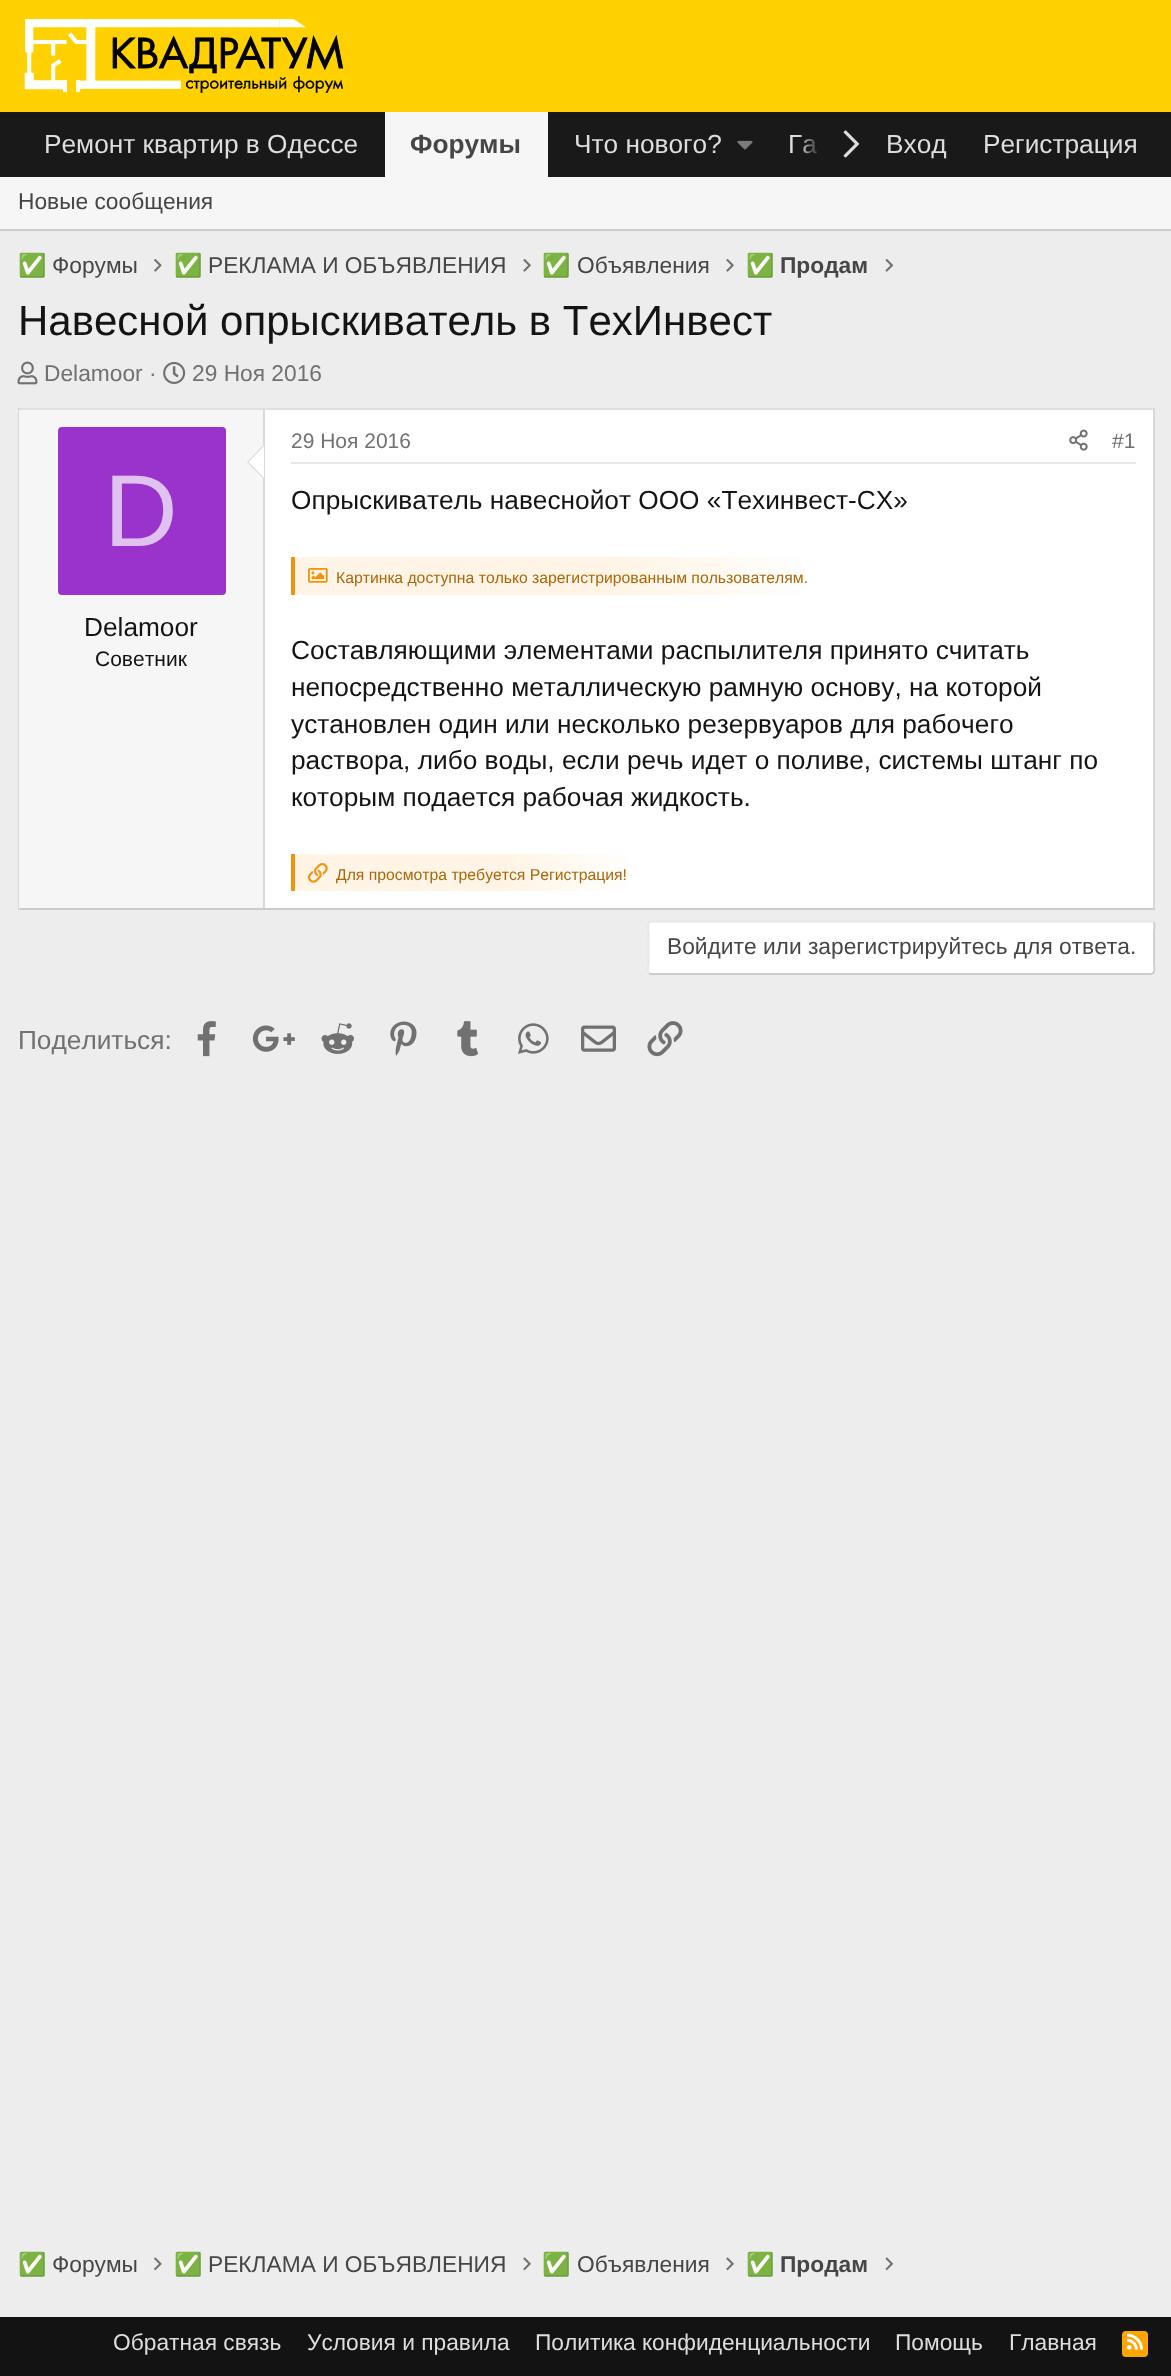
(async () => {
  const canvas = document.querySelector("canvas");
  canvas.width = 1171;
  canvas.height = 2376;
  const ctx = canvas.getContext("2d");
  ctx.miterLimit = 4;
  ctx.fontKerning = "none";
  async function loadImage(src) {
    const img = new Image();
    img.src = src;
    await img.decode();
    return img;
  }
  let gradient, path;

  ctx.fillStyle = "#ededed";
  ctx.fillRect(0, 0, 1171, 2376);
  ctx.fillStyle = "#ffd100";
  ctx.fillRect(0, 0, 1171, 112);
  ctx.drawImage(await loadImage("img/1.png"), 24, 19, 320, 74);
  ctx.fillStyle = "#191919";
  ctx.fillRect(0, 112, 1171, 65);
  ctx.fillStyle = "#f6f6f6";
  ctx.fillRect(385, 112, 163, 65);
  ctx.drawImage(await loadImage("img/2.png"), 737, 140, 16, 10);
  ctx.drawImage(await loadImage("img/3.png"), 843, 130, 17, 28);
  ctx.fillRect(0, 177, 1171, 52);
  ctx.fillStyle = "#cccccc";
  ctx.fillRect(0, 229, 1171, 2);
  ctx.drawImage(await loadImage("img/4.png"), 154, 259, 8, 13);
  ctx.drawImage(await loadImage("img/5.png"), 523, 259, 8, 13);
  ctx.drawImage(await loadImage("img/5.png"), 726, 259, 8, 13);
  ctx.drawImage(await loadImage("img/6.png"), 885, 259, 9, 13);
  ctx.drawImage(await loadImage("img/7.png"), 17, 361, 21, 24);
  ctx.drawImage(await loadImage("img/8.png"), 163, 362, 23, 22);
  for (const [x, y, w, h, color] of [
    [265, 410, 888, 498, "#ffffff"],
    [18, 408, 1137, 2, "#e0e0e0"],
    [1153, 408, 2, 502, "#d9d9d9"],
    [18, 908, 1137, 2, "#cccccc"],
    [18, 408, 2, 502, "#d9d9d9"],
    [19, 410, 244, 498, "#f6f6f6"],
    [263, 410, 2, 498, "#d9d9d9"],
  ]) {
    ctx.fillStyle = color;
    ctx.fillRect(x, y, w, h);
  }
  path = new Path2D("M264 444.5V479.5L247 462Z");
  ctx.fill(path);
  ctx.fillStyle = "#ffffff";
  path = new Path2D("M264 446V478L248.5 462Z");
  ctx.fill(path);
  ctx.fillStyle = "#9933cc";
  ctx.beginPath();
  ctx.roundRect(58, 427, 168, 168, 4);
  ctx.fill();
  ctx.fillStyle = "#e8e8e8";
  ctx.fillRect(291, 462, 845, 2);
  ctx.drawImage(await loadImage("img/9.png"), 1069, 429, 19, 22);
  gradient = ctx.createLinearGradient(294, 576, 823, 576);
  gradient.addColorStop(0, "#fff4e5");
  gradient.addColorStop(0.6, "#fff4e5");
  gradient.addColorStop(1, "#ffffff");
  ctx.fillStyle = gradient;
  ctx.fillRect(295, 557, 508, 38);
  ctx.fillStyle = "#f2930d";
  ctx.fillRect(291, 557, 4, 38);
  ctx.drawImage(await loadImage("img/10.png"), 308, 568, 20, 15);
  gradient = ctx.createLinearGradient(294, 872, 641, 872);
  gradient.addColorStop(0, "#fff4e5");
  gradient.addColorStop(0.6, "#fff4e5");
  gradient.addColorStop(1, "#ffffff");
  ctx.fillStyle = gradient;
  ctx.fillRect(295, 854, 333, 37);
  ctx.fillStyle = "#f2930d";
  ctx.fillRect(291, 854, 4, 37);
  ctx.drawImage(await loadImage("img/11.png"), 308, 863, 20, 20);
  ctx.fillStyle = "#ffffff";
  ctx.beginPath();
  ctx.roundRect(648, 921, 507, 54, 4);
  ctx.fill();
  path = new Path2D("M1153.5 922C1155.5 924.5 1154 928.5 1154 932V963.5C1154 964.5 1156 974 1151.5 974H650.5L649 973");
  ctx.strokeStyle = "#cccccc";
  ctx.lineWidth = 1.8;
  ctx.stroke(path);
  path = new Path2D("M649 973C647 971 648.5 966.5 648.5 963.5V932C648.5 931 646.5 921.5 651 921.5H1152L1153.5 922");
  ctx.strokeStyle = "#e6e6e6";
  ctx.stroke(path);
  ctx.drawImage(await loadImage("img/12.png"), 197, 1021, 19, 36);
  ctx.drawImage(await loadImage("img/13.png"), 252, 1025, 43, 27);
  ctx.drawImage(await loadImage("img/14.png"), 321, 1023, 33, 31);
  ctx.drawImage(await loadImage("img/15.png"), 390, 1021, 27, 35);
  ctx.drawImage(await loadImage("img/16.png"), 457, 1021, 21, 36);
  ctx.drawImage(await loadImage("img/17.png"), 518, 1023, 31, 31);
  ctx.drawImage(await loadImage("img/18.png"), 581, 1025, 35, 27);
  ctx.drawImage(await loadImage("img/19.png"), 647, 1021, 36, 36);
  ctx.drawImage(await loadImage("img/20.png"), 154, 2257, 8, 14);
  ctx.drawImage(await loadImage("img/21.png"), 523, 2257, 8, 14);
  ctx.drawImage(await loadImage("img/21.png"), 726, 2257, 8, 14);
  ctx.drawImage(await loadImage("img/22.png"), 885, 2257, 9, 14);
  ctx.fillStyle = "#131313";
  ctx.fillRect(0, 2317, 1171, 59);
  ctx.fillStyle = "#ffa500";
  ctx.beginPath();
  ctx.roundRect(1122, 2331, 26, 26, 4);
  ctx.fill();
  ctx.drawImage(await loadImage("img/23.png"), 1127, 2333, 16, 17);
  ctx.font = "26.25px Liberation Sans";
  ctx.fillStyle = "#dddddd";
  ctx.fillText("Ремонт квартир в Одессе", 44, 153);
  ctx.font = "bold 26.25px Liberation Sans";
  ctx.fillStyle = "#464646";
  ctx.fillText("Форумы", 410, 153);
  ctx.font = "26.25px Liberation Sans";
  ctx.fillStyle = "#dddddd";
  ctx.fillText("Что нового?", 574, 153);
  ctx.fillText("Га", 788, 153);
  gradient = ctx.createLinearGradient(798, 144, 868, 144);
  gradient.addColorStop(0, "rgba(25, 25, 25, 0)");
  gradient.addColorStop(0.33, "#191919");
  ctx.fillStyle = gradient;
  ctx.fillRect(798, 135, 20, 19);
  ctx.fillStyle = "#dddddd";
  ctx.fillText("Вход", 886, 153);
  ctx.fillText("Регистрация", 983, 153);
  ctx.font = "22.75px Liberation Sans";
  ctx.fillStyle = "#464646";
  ctx.fillText("Новые сообщения", 18, 209);
  ctx.save();
  ctx.beginPath();
  ctx.rect(18, 249, 120, 33);
  ctx.clip();
  ctx.font = "22.75px Noto Color Emoji";
  ctx.fillText("✅", 18, 273);
  ctx.restore();
  ctx.fillText("Форумы", 52, 273);
  ctx.font = "22.75px Noto Color Emoji";
  ctx.fillText("✅", 174, 273);
  ctx.font = "22.75px Liberation Sans";
  ctx.fillText("РЕКЛАМА И ОБЪЯВЛЕНИЯ", 208, 273);
  ctx.save();
  ctx.beginPath();
  ctx.rect(543, 249, 168, 33);
  ctx.clip();
  ctx.font = "22.75px Noto Color Emoji";
  ctx.fillText("✅", 542, 273);
  ctx.restore();
  ctx.fillText("Объявления", 577, 273);
  ctx.save();
  ctx.beginPath();
  ctx.rect(746, 249, 122, 33);
  ctx.clip();
  ctx.font = "bold 22.75px Noto Color Emoji";
  ctx.fillText("✅", 746, 273);
  ctx.restore();
  ctx.font = "bold 22.75px Liberation Sans";
  ctx.fillText("Продам", 780, 273);
  ctx.font = "42px Liberation Sans";
  ctx.fillStyle = "#141414";
  ctx.fillText("Навесной опрыскиватель в ТехИнвест", 18, 335);
  ctx.font = "22.75px Liberation Sans";
  ctx.fillStyle = "#717171";
  ctx.fillText("Delamoor ·", 44, 381);
  ctx.fillText("29 Ноя 2016", 192, 381);
  ctx.font = "102px Liberation Sans";
  ctx.fillStyle = "#e0c2f0";
  ctx.fillText("D", 104, 546);
  ctx.font = "26.25px Liberation Sans";
  ctx.fillStyle = "#141414";
  ctx.fillText("Delamoor", 84, 636);
  ctx.font = "21px Liberation Sans";
  ctx.fillText("Советник", 95, 666);
  ctx.fillStyle = "#717171";
  ctx.fillText("29 Ноя 2016", 291, 448);
  ctx.fillText("#1", 1112, 448);
  ctx.font = "26.25px Liberation Sans";
  ctx.fillStyle = "#141414";
  ctx.fillText("Опрыскиватель навеснойот ООО «Техинвест-СХ»", 291, 509);
  ctx.font = "15.75px Liberation Sans";
  ctx.fillStyle = "#aa6709";
  ctx.fillText("Картинка доступна только зарегистрированным пользователям.", 336, 583);
  ctx.font = "26.25px Liberation Sans";
  ctx.fillStyle = "#141414";
  for (const [text, x, y] of [
    ["Составляющими элементами распылителя принято считать", 291, 659],
    ["непосредственно металлическую рамную основу, на которой", 291, 696],
    ["установлен один или несколько резервуаров для рабочего", 291, 733],
    ["раствора, либо воды, если речь идет о поливе, системы штанг по", 291, 769],
    ["которым подается рабочая жидкость.", 291, 806],
  ]) {
    ctx.fillText(text, x, y);
  }
  ctx.font = "15.75px Liberation Sans";
  ctx.fillStyle = "#aa6709";
  ctx.fillText("Для просмотра требуется Регистрация!", 336, 880);
  ctx.font = "22.75px Liberation Sans";
  ctx.fillStyle = "#464646";
  ctx.fillText("Войдите или зарегистрируйтесь для ответа.", 667, 954);
  ctx.font = "26.25px Liberation Sans";
  ctx.fillStyle = "#717171";
  ctx.fillText("Поделиться:", 18, 1049);
  ctx.save();
  ctx.beginPath();
  ctx.rect(18, 2247, 120, 35);
  ctx.clip();
  ctx.font = "22.75px Noto Color Emoji";
  ctx.fillStyle = "#464646";
  ctx.fillText("✅", 18, 2272);
  ctx.restore();
  ctx.font = "22.75px Liberation Sans";
  ctx.fillStyle = "#464646";
  ctx.fillText("Форумы", 52, 2272);
  ctx.font = "22.75px Noto Color Emoji";
  ctx.fillText("✅", 174, 2272);
  ctx.font = "22.75px Liberation Sans";
  ctx.fillText("РЕКЛАМА И ОБЪЯВЛЕНИЯ", 208, 2272);
  ctx.save();
  ctx.beginPath();
  ctx.rect(543, 2247, 168, 35);
  ctx.clip();
  ctx.font = "22.75px Noto Color Emoji";
  ctx.fillText("✅", 542, 2272);
  ctx.restore();
  ctx.fillText("Объявления", 577, 2272);
  ctx.save();
  ctx.beginPath();
  ctx.rect(746, 2247, 122, 35);
  ctx.clip();
  ctx.font = "bold 22.75px Noto Color Emoji";
  ctx.fillText("✅", 746, 2272);
  ctx.restore();
  ctx.font = "bold 22.75px Liberation Sans";
  ctx.fillText("Продам", 780, 2272);
  ctx.font = "22.75px Liberation Sans";
  ctx.fillStyle = "#dddddd";
  for (const [text, x, y] of [
    ["Обратная связь", 113, 2350],
    ["Условия и правила", 307, 2350],
    ["Политика конфиденциальности", 535, 2350],
    ["Помощь", 895, 2350],
    ["Главная", 1009, 2350],
  ]) {
    ctx.fillText(text, x, y);
  }
})();
